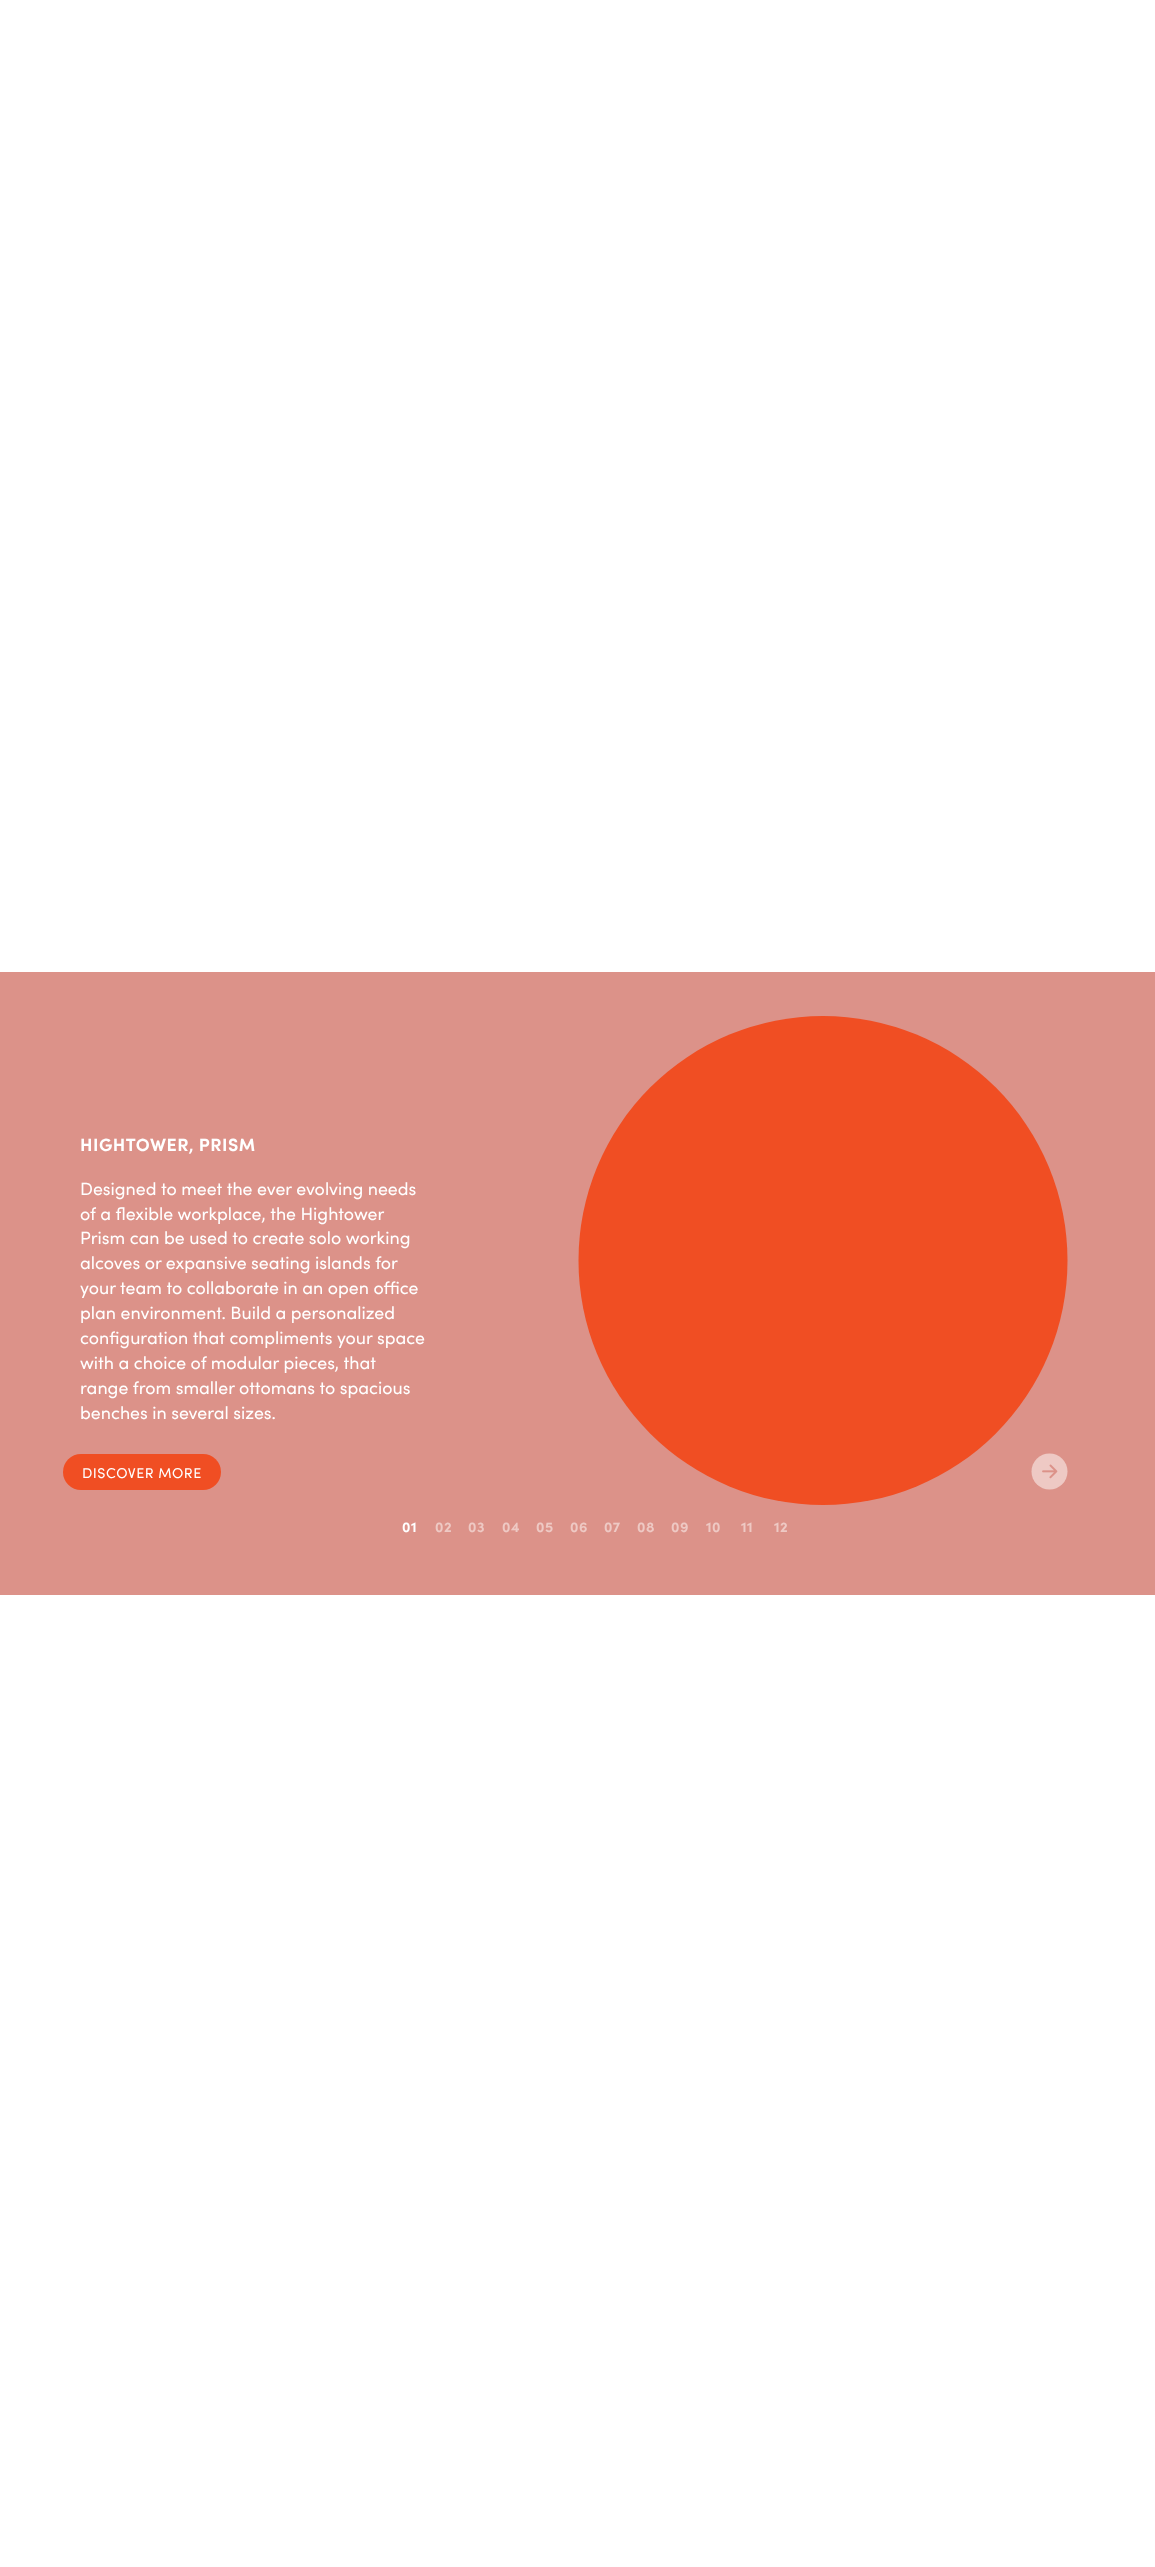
(async () => {
  const canvas = document.querySelector("canvas");
  canvas.width = 1155;
  canvas.height = 2567;
  const ctx = canvas.getContext("2d");
  ctx.miterLimit = 4;
  ctx.fontKerning = "normal";
  async function loadImage(src) {
    const img = new Image();
    img.src = src;
    await img.decode();
    return img;
  }

  ctx.fillStyle = "#ffffff";
  ctx.fillRect(0, 0, 1155, 2567);
  ctx.fillStyle = "#dc9289";
  ctx.fillRect(0, 972, 1155, 623);
  ctx.fillStyle = "#f04e23";
  ctx.beginPath();
  ctx.arc(823, 1260.5, 244.5, 0, Math.PI * 2);
  ctx.fill();
  ctx.beginPath();
  ctx.roundRect(63, 1454, 158, 36, 18);
  ctx.fill();
  ctx.fillStyle = "#eec9c4";
  ctx.beginPath();
  ctx.arc(1049.5, 1471.5, 18, 0, Math.PI * 2);
  ctx.fill();
  ctx.drawImage(await loadImage("img/1.png"), 1042, 1464, 16, 15);
  ctx.letterSpacing = "0.5px";
  ctx.font = "bold 17.75px Sofia";
  ctx.fillStyle = "#ffffff";
  ctx.fillText("HIGHTOWER, PRISM", 80, 1151);
  ctx.letterSpacing = "0px";
  ctx.font = "17.75px Sofia";
  for (const [text, x, y] of [
    ["Designed to meet the ever evolving needs", 80, 1195],
    ["of a flexible workplace, the Hightower", 80, 1220],
    ["Prism can be used to create solo working", 80, 1244],
    ["alcoves or expansive seating islands for", 80, 1269],
    ["your team to collaborate in an open office", 80, 1294],
    ["plan environment. Build a personalized", 80, 1319],
    ["configuration that compliments your space", 80, 1344],
    ["with a choice of modular pieces, that", 80, 1369],
    ["range from smaller ottomans to spacious", 80, 1394],
    ["benches in several sizes.", 80, 1419],
  ]) {
    ctx.fillText(text, x, y);
  }
  ctx.letterSpacing = "0.5px";
  ctx.font = "14.25px Sofia";
  ctx.fillText("DISCOVER MORE", 82, 1478);
  ctx.font = "bold 14.25px Sofia";
  ctx.fillText("01", 402, 1532);
  ctx.fillStyle = "#eec9c4";
  for (const [text, x, y] of [
    ["02", 435, 1532],
    ["03", 468, 1532],
    ["04", 502, 1532],
    ["05", 536, 1532],
    ["06", 570, 1532],
    ["07", 604, 1532],
    ["08", 637, 1532],
    ["09", 671, 1532],
    ["10", 706, 1532],
    ["11", 741, 1532],
    ["12", 774, 1532],
  ]) {
    ctx.fillText(text, x, y);
  }
})();
